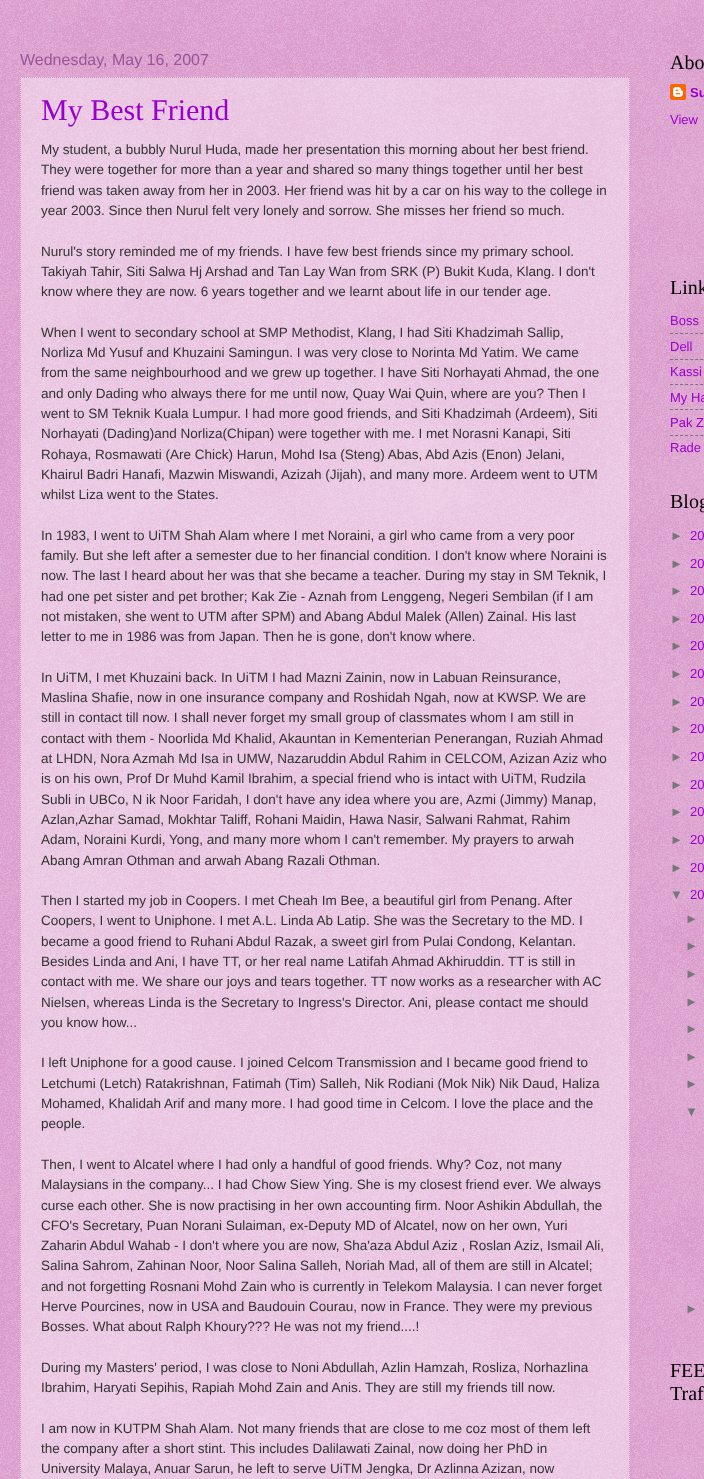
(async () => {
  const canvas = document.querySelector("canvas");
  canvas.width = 704;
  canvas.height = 1479;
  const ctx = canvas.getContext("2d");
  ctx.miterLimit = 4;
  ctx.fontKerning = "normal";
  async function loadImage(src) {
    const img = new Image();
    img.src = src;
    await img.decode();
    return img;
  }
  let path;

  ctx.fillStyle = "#c054a8";
  ctx.fillRect(0, 0, 704, 1479);
  ctx.drawImage(await loadImage("img/1.png"), 0, 0, 704, 1479);
  ctx.fillStyle = "rgba(255, 255, 255, 0.4)";
  ctx.fillRect(20, 77, 610, 1402);
  path = new Path2D("M20 77.5H630");
  ctx.strokeStyle = "#cc99c3";
  ctx.setLineDash([1, 1]);
  ctx.stroke(path);
  path = new Path2D("M629.5 77V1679");
  ctx.stroke(path);
  path = new Path2D("M20.5 77V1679");
  ctx.stroke(path);
  ctx.drawImage(await loadImage("img/2.png"), 670, 84, 16, 16);
  path = new Path2D("M670 333.5H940M670 359.5H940M670 384.5H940");
  ctx.strokeStyle = "#777777";
  ctx.setLineDash([3, 2.04]);
  ctx.stroke(path);
  path = new Path2D("M670 409.5H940M670 435.5H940");
  ctx.stroke(path);
  ctx.font = "16px Liberation Sans";
  ctx.fillStyle = "#995599";
  ctx.fillText("Wednesday, May 16, 2007", 20, 65);
  ctx.font = "30px Liberation Serif";
  ctx.fillStyle = "#9900cc";
  ctx.fillText("My Best Friend", 41, 120);
  ctx.font = "13.5px Liberation Sans";
  ctx.fillStyle = "#333333";
  for (const [text, x, y] of [
    ["My student, a bubbly Nurul Huda, made her presentation this morning about her best friend.", 41, 154],
    ["They were together for more than a year and shared so many things together until her best", 41, 174],
    ["friend was taken away from her in 2003. Her friend was hit by a car on his way to the college in", 41, 195],
    ["year 2003. Since then Nurul felt very lonely and sorrow. She misses her friend so much.", 41, 215],
    ["Nurul's story reminded me of my friends. I have few best friends since my primary school.", 41, 256],
    ["Takiyah Tahir, Siti Salwa Hj Arshad and Tan Lay Wan from SRK (P) Bukit Kuda, Klang. I don't", 41, 276],
    ["know where they are now. 6 years together and we learnt about life in our tender age.", 41, 296],
    ["When I went to secondary school at SMP Methodist, Klang, I had Siti Khadzimah Sallip,", 41, 337],
    ["Norliza Md Yusuf and Khuzaini Samingun. I was very close to Norinta Md Yatim. We came", 41, 357],
    ["from the same neighbourhood and we grew up together. I have Siti Norhayati Ahmad, the one", 41, 377],
    ["and only Dading who always there for me until now, Quay Wai Quin, where are you? Then I", 41, 398],
    ["went to SM Teknik Kuala Lumpur. I had more good friends, and Siti Khadzimah (Ardeem), Siti", 41, 418],
    ["Norhayati (Dading)and Norliza(Chipan) were together with me. I met Norasni Kanapi, Siti", 41, 438],
    ["Rohaya, Rosmawati (Are Chick) Harun, Mohd Isa (Steng) Abas, Abd Azis (Enon) Jelani,", 41, 459],
    ["Khairul Badri Hanafi, Mazwin Miswandi, Azizah (Jijah), and many more. Ardeem went to UTM", 41, 479],
    ["whilst Liza went to the States.", 41, 499],
    ["In 1983, I went to UiTM Shah Alam where I met Noraini, a girl who came from a very poor", 41, 540],
    ["family. But she left after a semester due to her financial condition. I don't know where Noraini is", 41, 560],
    ["now. The last I heard about her was that she became a teacher. During my stay in SM Teknik, I", 41, 580],
    ["had one pet sister and pet brother; Kak Zie - Aznah from Lenggeng, Negeri Sembilan (if I am", 41, 601],
    ["not mistaken, she went to UTM after SPM) and Abang Abdul Malek (Allen) Zainal. His last", 41, 621],
    ["letter to me in 1986 was from Japan. Then he is gone, don't know where.", 41, 641],
    ["In UiTM, I met Khuzaini back. In UiTM I had Mazni Zainin, now in Labuan Reinsurance,", 41, 682],
    ["Maslina Shafie, now in one insurance company and Roshidah Ngah, now at KWSP. We are", 41, 702],
    ["still in contact till now. I shall never forget my small group of classmates whom I am still in", 41, 722],
    ["contact with them - Noorlida Md Khalid, Akauntan in Kementerian Penerangan, Ruziah Ahmad", 41, 743],
    ["at LHDN, Nora Azmah Md Isa in UMW, Nazaruddin Abdul Rahim in CELCOM, Azizan Aziz who", 41, 763],
    ["is on his own, Prof Dr Muhd Kamil Ibrahim, a special friend who is intact with UiTM, Rudzila", 41, 783],
    ["Subli in UBCo, N ik Noor Faridah, I don't have any idea where you are, Azmi (Jimmy) Manap,", 41, 804],
    ["Azlan,Azhar Samad, Mokhtar Taliff, Rohani Maidin, Hawa Nasir, Salwani Rahmat, Rahim", 41, 824],
    ["Adam, Noraini Kurdi, Yong, and many more whom I can't remember. My prayers to arwah", 41, 844],
    ["Abang Amran Othman and arwah Abang Razali Othman.", 41, 865],
    ["Then I started my job in Coopers. I met Cheah Im Bee, a beautiful girl from Penang. After", 41, 905],
    ["Coopers, I went to Uniphone. I met A.L. Linda Ab Latip. She was the Secretary to the MD. I", 41, 925],
    ["became a good friend to Ruhani Abdul Razak, a sweet girl from Pulai Condong, Kelantan.", 41, 946],
    ["Besides Linda and Ani, I have TT, or her real name Latifah Ahmad Akhiruddin. TT is still in", 41, 966],
    ["contact with me. We share our joys and tears together. TT now works as a researcher with AC", 41, 986],
    ["Nielsen, whereas Linda is the Secretary to Ingress's Director. Ani, please contact me should", 41, 1007],
    ["you know how...", 41, 1027],
    ["I left Uniphone for a good cause. I joined Celcom Transmission and I became good friend to", 41, 1067],
    ["Letchumi (Letch) Ratakrishnan, Fatimah (Tim) Salleh, Nik Rodiani (Mok Nik) Nik Daud, Haliza", 41, 1088],
    ["Mohamed, Khalidah Arif and many more. I had good time in Celcom. I love the place and the", 41, 1108],
    ["people.", 41, 1128],
    ["Then, I went to Alcatel where I had only a handful of good friends. Why? Coz, not many", 41, 1169],
    ["Malaysians in the company... I had Chow Siew Ying. She is my closest friend ever. We always", 41, 1189],
    ["curse each other. She is now practising in her own accounting firm. Noor Ashikin Abdullah, the", 41, 1210],
    ["CFO's Secretary, Puan Norani Sulaiman, ex-Deputy MD of Alcatel, now on her own, Yuri", 41, 1230],
    ["Zaharin Abdul Wahab - I don't where you are now, Sha'aza Abdul Aziz , Roslan Aziz, Ismail Ali,", 41, 1250],
    ["Salina Sahrom, Zahinan Noor, Noor Salina Salleh, Noriah Mad, all of them are still in Alcatel;", 41, 1270],
    ["and not forgetting Rosnani Mohd Zain who is currently in Telekom Malaysia. I can never forget", 41, 1291],
    ["Herve Pourcines, now in USA and Baudouin Courau, now in France. They were my previous", 41, 1311],
    ["Bosses. What about Ralph Khoury??? He was not my friend....!", 41, 1331],
    ["During my Masters' period, I was close to Noni Abdullah, Azlin Hamzah, Rosliza, Norhazlina", 41, 1372],
    ["Ibrahim, Haryati Sepihis, Rapiah Mohd Zain and Anis. They are still my friends till now.", 41, 1392],
    ["I am now in KUTPM Shah Alam. Not many friends that are close to me coz most of them left", 41, 1433],
    ["the company after a short stint. This includes Dalilawati Zainal, now doing her PhD in", 41, 1453],
    ["University Malaya, Anuar Sarun, he left to serve UiTM Jengka, Dr Azlinna Azizan, now", 41, 1473],
  ]) {
    ctx.fillText(text, x, y);
  }
  ctx.font = "20px Liberation Serif";
  ctx.fillStyle = "#000000";
  ctx.fillText("Abo", 670, 69);
  ctx.font = "bold 13px Liberation Sans";
  ctx.fillStyle = "#9900cc";
  ctx.fillText("Su", 690, 97);
  ctx.font = "13px Liberation Sans";
  ctx.fillText("View", 670, 124);
  ctx.font = "20px Liberation Serif";
  ctx.fillStyle = "#000000";
  ctx.fillText("Link", 670, 294);
  ctx.font = "13px Liberation Sans";
  ctx.fillStyle = "#9900cc";
  for (const [text, x, y] of [
    ["Boss", 670, 325],
    ["Dell", 670, 351],
    ["Kassi", 670, 376],
    ["My Ha", 670, 402],
    ["Pak Z", 670, 427],
    ["Rade", 670, 452],
  ]) {
    ctx.fillText(text, x, y);
  }
  ctx.font = "20px Liberation Serif";
  ctx.fillStyle = "#000000";
  ctx.fillText("Blog", 670, 508);
  ctx.font = "13px Liberation Sans";
  ctx.fillStyle = "#777777";
  ctx.fillText("►", 670, 540);
  ctx.fillStyle = "#9900cc";
  ctx.fillText("20", 690, 540);
  ctx.fillStyle = "#777777";
  ctx.fillText("►", 670, 568);
  ctx.fillStyle = "#9900cc";
  ctx.fillText("20", 690, 568);
  ctx.fillStyle = "#777777";
  ctx.fillText("►", 670, 595);
  ctx.fillStyle = "#9900cc";
  ctx.fillText("20", 690, 595);
  ctx.fillStyle = "#777777";
  ctx.fillText("►", 670, 623);
  ctx.fillStyle = "#9900cc";
  ctx.fillText("20", 690, 623);
  ctx.fillStyle = "#777777";
  ctx.fillText("►", 670, 650);
  ctx.fillStyle = "#9900cc";
  ctx.fillText("20", 690, 650);
  ctx.fillStyle = "#777777";
  ctx.fillText("►", 670, 678);
  ctx.fillStyle = "#9900cc";
  ctx.fillText("20", 690, 678);
  ctx.fillStyle = "#777777";
  ctx.fillText("►", 670, 706);
  ctx.fillStyle = "#9900cc";
  ctx.fillText("20", 690, 706);
  ctx.fillStyle = "#777777";
  ctx.fillText("►", 670, 733);
  ctx.fillStyle = "#9900cc";
  ctx.fillText("20", 690, 733);
  ctx.fillStyle = "#777777";
  ctx.fillText("►", 670, 761);
  ctx.fillStyle = "#9900cc";
  ctx.fillText("20", 690, 761);
  ctx.fillStyle = "#777777";
  ctx.fillText("►", 670, 789);
  ctx.fillStyle = "#9900cc";
  ctx.fillText("20", 690, 789);
  ctx.fillStyle = "#777777";
  ctx.fillText("►", 670, 816);
  ctx.fillStyle = "#9900cc";
  ctx.fillText("20", 690, 816);
  ctx.fillStyle = "#777777";
  ctx.fillText("►", 670, 844);
  ctx.fillStyle = "#9900cc";
  ctx.fillText("20", 690, 844);
  ctx.fillStyle = "#777777";
  ctx.fillText("►", 670, 872);
  ctx.fillStyle = "#9900cc";
  ctx.fillText("20", 690, 872);
  ctx.fillStyle = "#777777";
  ctx.fillText("▼", 670, 899);
  ctx.fillStyle = "#9900cc";
  ctx.fillText("20", 690, 899);
  ctx.fillStyle = "#777777";
  for (const [text, x, y] of [
    ["►", 685, 923],
    ["►", 685, 950],
    ["►", 685, 978],
    ["►", 685, 1006],
    ["►", 685, 1033],
    ["►", 685, 1061],
    ["►", 685, 1088],
    ["▼", 685, 1116],
    ["►", 685, 1313],
  ]) {
    ctx.fillText(text, x, y);
  }
  ctx.font = "20px Liberation Serif";
  ctx.fillStyle = "#000000";
  ctx.fillText("FEE", 670, 1377);
  ctx.fillText("Traf", 670, 1400);
})();
